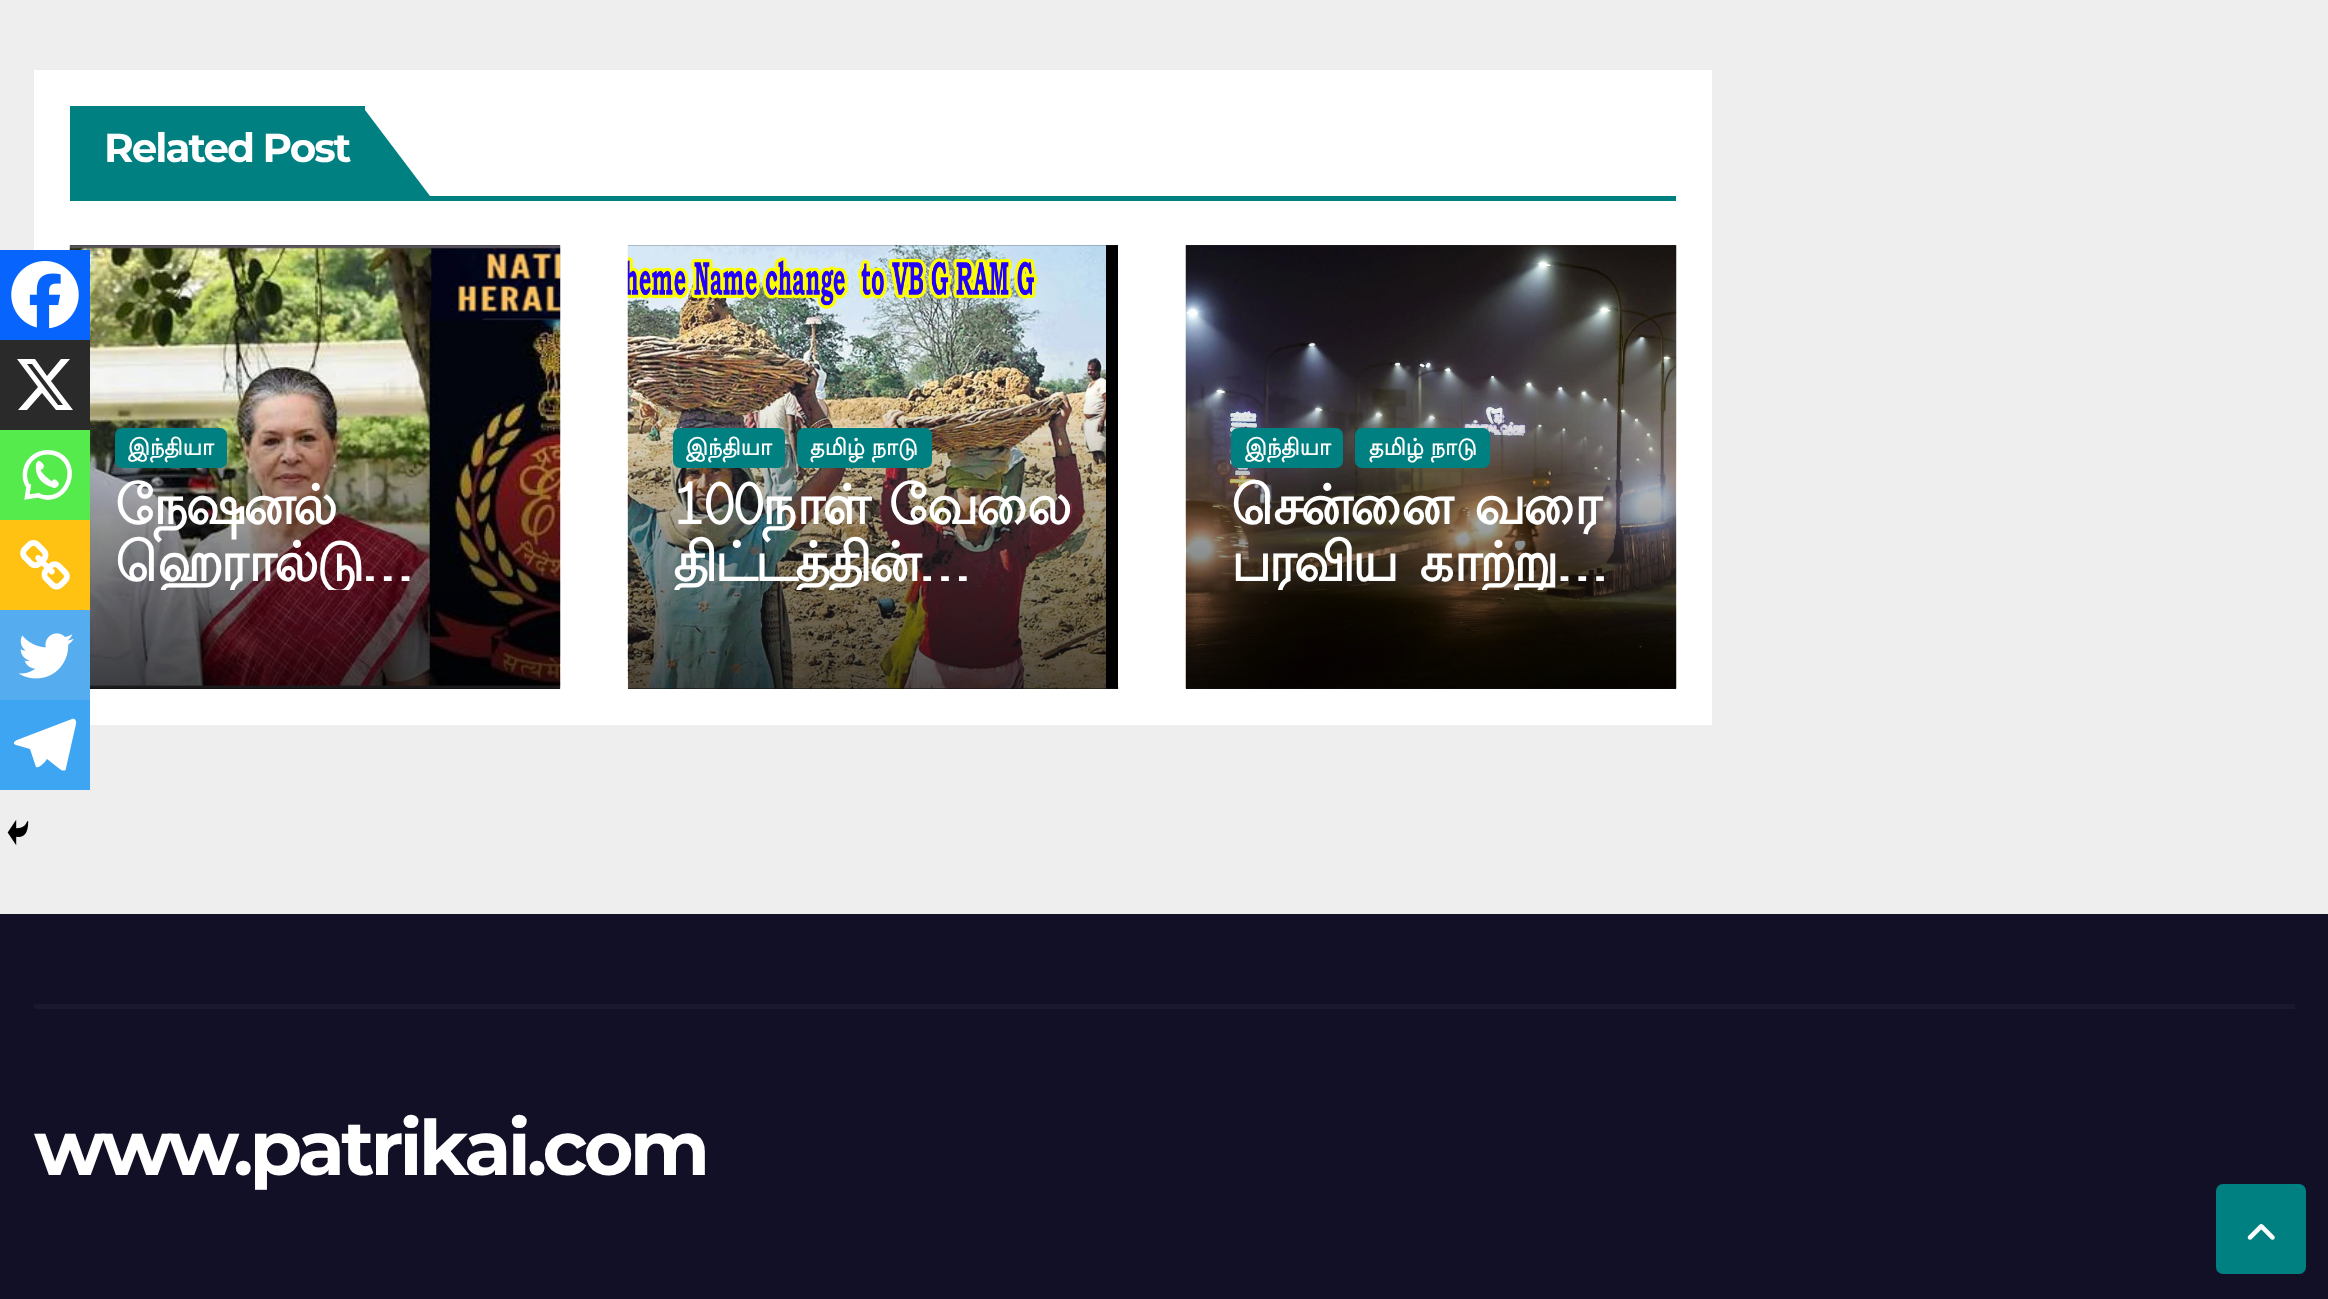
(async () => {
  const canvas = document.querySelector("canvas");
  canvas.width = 2328;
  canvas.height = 1299;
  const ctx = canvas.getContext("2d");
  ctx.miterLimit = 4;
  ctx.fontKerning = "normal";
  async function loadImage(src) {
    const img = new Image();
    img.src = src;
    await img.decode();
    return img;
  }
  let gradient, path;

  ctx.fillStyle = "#eeeeee";
  ctx.fillRect(0, 0, 2328, 1299);
  ctx.fillStyle = "#ffffff";
  ctx.fillRect(34, 70, 1678, 655);
  ctx.fillStyle = "#333333";
  ctx.fillRect(70, 245, 490, 444);
  ctx.drawImage(await loadImage("img/5.png"), 69, 245, 492, 444);
  ctx.fillStyle = "#0765fe";
  ctx.fillRect(0, 250, 90, 90);
  ctx.drawImage(await loadImage("img/1.png"), 11, 261, 68, 68);
  ctx.fillStyle = "#2a2a2a";
  ctx.fillRect(0, 340, 90, 90);
  ctx.fillStyle = "#ffffff";
  path = new Path2D("M61 359H70L51 381L73 410H56L42 393L27 410H18L38 387L17 359H35L47 376ZM58 405H63L32 364H27Z");
  ctx.fill(path);
  ctx.fillStyle = "#55eb4c";
  ctx.fillRect(0, 430, 90, 90);
  path = new Path2D("M39.5 496C68 506.5 83 462 54 453C47.5 451.5 40.5 452.5 35 456C24.5 463 21.5 477.5 29 487.5M29 484L27 497L40.5 495");
  ctx.strokeStyle = "#ffffff";
  ctx.lineWidth = 4.5;
  ctx.stroke(path);
  ctx.fillStyle = "#ffffff";
  path = new Path2D("M36 463.5C34.5 475.5 40.5 484 54 488C65 486 54 475 52 481.5C46 477 42 473 40.5 470C49.5 466 38 459 38 461");
  ctx.fill(path);
  ctx.fillStyle = "#ffc112";
  ctx.fillRect(0, 520, 90, 90);
  ctx.drawImage(await loadImage("img/2.png"), 20, 540, 50, 50);
  ctx.fillStyle = "#55acee";
  ctx.fillRect(0, 610, 90, 90);
  ctx.drawImage(await loadImage("img/3.png"), 18, 633, 56, 46);
  ctx.fillStyle = "#3da5f1";
  ctx.fillRect(0, 700, 90, 90);
  ctx.fillStyle = "#ffffff";
  path = new Path2D("M72 719L17 740C13 742 13 744 16 745L30 749L36 767C39 769 46 761 47 759L61 770C64 771 66 771 66 768L76 724C77 720 74 718 72 719Z");
  ctx.fill(path);
  ctx.drawImage(await loadImage("img/4.png"), 7, 819, 22, 27);
  ctx.fillStyle = "#008080";
  ctx.fillRect(70, 196, 1606, 5);
  ctx.fillRect(70, 106, 295, 90);
  path = new Path2D("M362 196V106L430 196Z");
  ctx.fill(path);
  gradient = ctx.createLinearGradient(315, 387, 315, 689);
  gradient.addColorStop(0, "rgba(0, 0, 0, 0)");
  gradient.addColorStop(0.5, "rgba(0, 0, 0, 0.4)");
  gradient.addColorStop(1, "rgba(0, 0, 0, 0.7)");
  ctx.fillStyle = gradient;
  ctx.fillRect(90, 395, 470, 294);
  ctx.fillStyle = "#008080";
  ctx.beginPath();
  ctx.roundRect(115, 428, 112, 40, 7);
  ctx.fill();
  ctx.fillStyle = "#333333";
  ctx.fillRect(628, 245, 490, 444);
  ctx.drawImage(await loadImage("img/6.png"), 627, 245, 492, 444);
  gradient = ctx.createLinearGradient(873, 387, 873, 689);
  gradient.addColorStop(0, "rgba(0, 0, 0, 0)");
  gradient.addColorStop(0.5, "rgba(0, 0, 0, 0.4)");
  gradient.addColorStop(1, "rgba(0, 0, 0, 0.7)");
  ctx.fillStyle = gradient;
  ctx.fillRect(628, 395, 490, 294);
  ctx.fillStyle = "#008080";
  ctx.beginPath();
  ctx.roundRect(673, 428, 112, 40, 7);
  ctx.fill();
  ctx.beginPath();
  ctx.roundRect(797, 428, 135, 40, 7);
  ctx.fill();
  ctx.fillStyle = "#333333";
  ctx.fillRect(1186, 245, 490, 444);
  ctx.drawImage(await loadImage("img/7.png"), 1185, 245, 492, 444);
  gradient = ctx.createLinearGradient(1431, 387, 1431, 689);
  gradient.addColorStop(0, "rgba(0, 0, 0, 0)");
  gradient.addColorStop(0.5, "rgba(0, 0, 0, 0.4)");
  gradient.addColorStop(1, "rgba(0, 0, 0, 0.7)");
  ctx.fillStyle = gradient;
  ctx.fillRect(1186, 395, 490, 294);
  ctx.fillStyle = "#008080";
  ctx.beginPath();
  ctx.roundRect(1231, 428, 112, 40, 7);
  ctx.fill();
  ctx.beginPath();
  ctx.roundRect(1355, 428, 135, 40, 7);
  ctx.fill();
  ctx.fillStyle = "#121026";
  ctx.fillRect(0, 914, 2328, 385);
  ctx.fillStyle = "#1a182e";
  ctx.fillRect(34, 1004, 2261, 5);
  ctx.fillStyle = "#008080";
  ctx.beginPath();
  ctx.roundRect(2218.5, 1186.5, 85, 85, 4.5);
  ctx.fill();
  ctx.strokeStyle = "#008080";
  ctx.lineWidth = 5;
  ctx.stroke();
  ctx.drawImage(await loadImage("img/8.png"), 2247, 1224, 28, 16);
  ctx.letterSpacing = "-2px";
  ctx.font = "bold 40.5px Montserrat";
  ctx.fillStyle = "#ffffff";
  ctx.fillText("Related Post", 104, 162);
  ctx.letterSpacing = "0px";
  ctx.font = "bold 22.5px Lohit Tamil";
  ctx.fillText("இந்தியா", 128, 455);
  ctx.letterSpacing = "-2.75px";
  ctx.font = "bold 54px Lohit Tamil";
  ctx.fillText("நேஷனல்", 115, 524);
  ctx.save();
  ctx.beginPath();
  ctx.rect(115, 477, 400, 113);
  ctx.clip();
  ctx.fillText("ஹெரால்டு…", 115, 581);
  ctx.restore();
  ctx.letterSpacing = "0px";
  ctx.font = "bold 22.5px Lohit Tamil";
  ctx.fillText("இந்தியா", 686, 455);
  ctx.fillText("தமிழ் நாடு", 810, 455);
  ctx.letterSpacing = "-2.75px";
  ctx.wordSpacing = "7px";
  ctx.font = "bold 54px Lohit Tamil";
  ctx.fillText("100நாள் வேலை", 673, 524);
  ctx.save();
  ctx.beginPath();
  ctx.rect(673, 477, 400, 113);
  ctx.clip();
  ctx.wordSpacing = "0px";
  ctx.fillText("திட்டத்தின்…", 673, 581);
  ctx.restore();
  ctx.letterSpacing = "0px";
  ctx.wordSpacing = "0px";
  ctx.font = "bold 22.5px Lohit Tamil";
  ctx.fillText("இந்தியா", 1245, 455);
  ctx.fillText("தமிழ் நாடு", 1369, 455);
  ctx.letterSpacing = "-2.75px";
  ctx.wordSpacing = "10px";
  ctx.font = "bold 54px Lohit Tamil";
  ctx.fillText("சென்னை வரை", 1231, 524);
  ctx.save();
  ctx.beginPath();
  ctx.rect(1231, 477, 400, 113);
  ctx.clip();
  ctx.fillText("பரவிய காற்று…", 1231, 581);
  ctx.restore();
  ctx.letterSpacing = "-3.8px";
  ctx.wordSpacing = "0px";
  ctx.font = "bold 76.5px Montserrat";
  ctx.fillText("www.patrikai.com", 34, 1175);
})();
